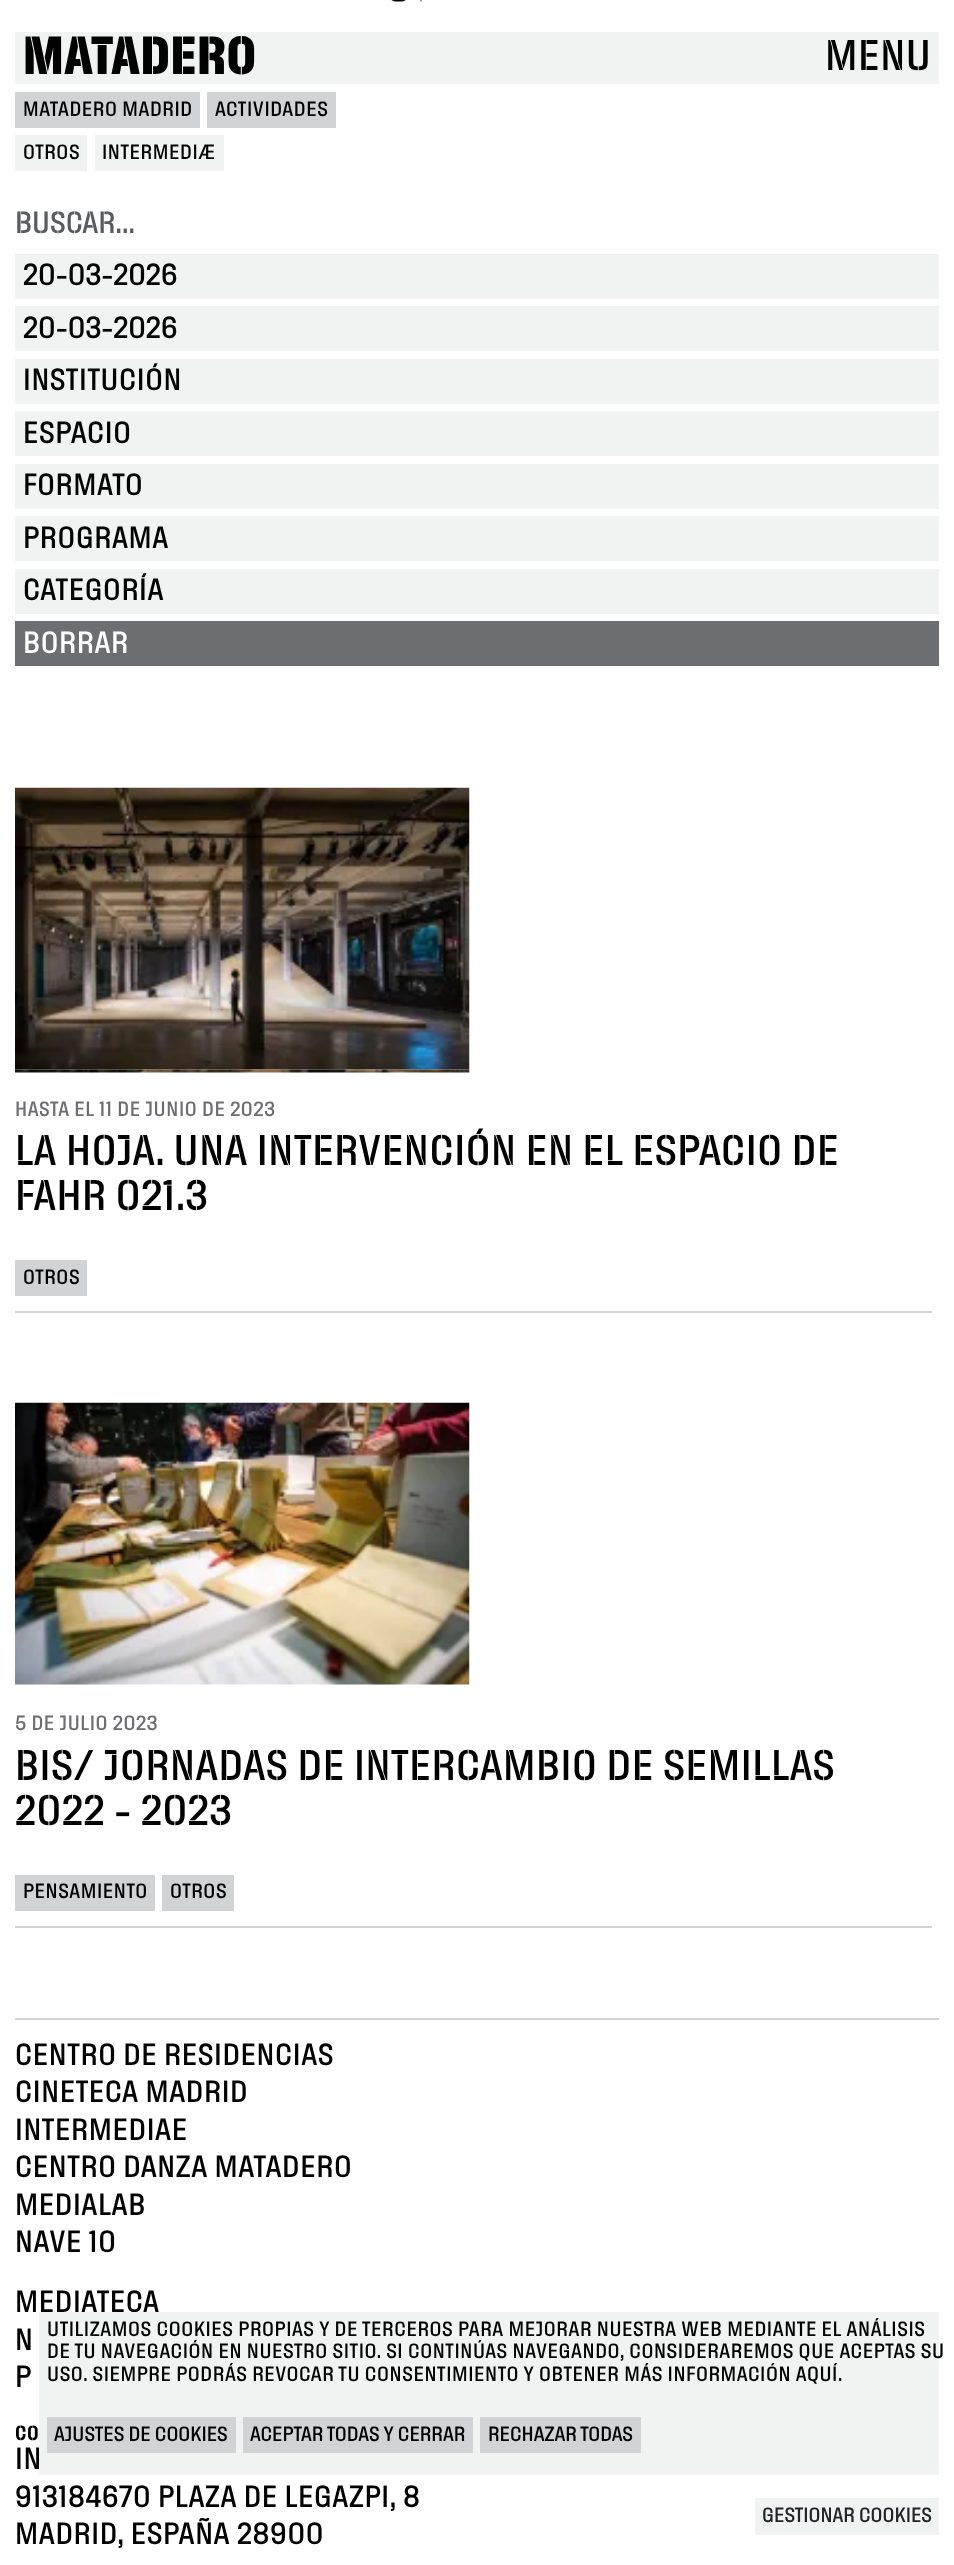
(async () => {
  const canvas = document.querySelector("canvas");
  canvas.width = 954;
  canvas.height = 2565;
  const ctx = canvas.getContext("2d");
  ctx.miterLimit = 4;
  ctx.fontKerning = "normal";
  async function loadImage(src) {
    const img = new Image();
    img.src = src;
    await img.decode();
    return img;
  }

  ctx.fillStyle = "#ffffff";
  ctx.fillRect(0, 0, 954, 2565);
  ctx.drawImage(await loadImage("img/1.png"), 391, 0, 31, 2);
  for (const [x, y, w, h, color] of [
    [15, 32, 924, 52, "#f1f2f2"],
    [15, 92, 185, 36, "#d1d3d4"],
    [207, 92, 129, 36, "#d1d3d4"],
    [15, 135, 72, 36, "#f1f2f2"],
    [95, 135, 129, 36, "#f1f2f2"],
    [15, 254, 924, 45, "#f1f2f2"],
    [15, 306, 924, 45, "#f1f2f2"],
    [15, 359, 924, 45, "#f1f2f2"],
    [15, 411, 924, 45, "#f1f2f2"],
    [15, 464, 924, 45, "#f1f2f2"],
    [15, 516, 924, 45, "#f1f2f2"],
    [15, 569, 924, 45, "#f1f2f2"],
    [15, 621, 924, 45, "#6d6e71"],
    [15, 1311, 917, 2, "#d1d3d4"],
  ]) {
    ctx.fillStyle = color;
    ctx.fillRect(x, y, w, h);
  }
  ctx.drawImage(await loadImage("img/2.png"), 15, 787, 455, 283);
  ctx.drawImage(await loadImage("img/3.png"), 15, 1069, 455, 4);
  ctx.fillRect(15, 1260, 72, 36);
  ctx.fillRect(15, 1926, 917, 2);
  ctx.drawImage(await loadImage("img/4.png"), 15, 1402, 455, 283);
  for (const [x, y, w, h, color] of [
    [15, 1875, 140, 36, "#d1d3d4"],
    [162, 1875, 72, 36, "#d1d3d4"],
    [15, 2018, 924, 2, "#d1d3d4"],
    [755, 2498, 184, 37, "#f1f2f2"],
  ]) {
    ctx.fillStyle = color;
    ctx.fillRect(x, y, w, h);
  }
  ctx.letterSpacing = "0.6px";
  ctx.font = "bold 52.5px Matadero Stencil";
  ctx.fillStyle = "#000000";
  ctx.fillText("MATADERO", 23, 74);
  ctx.font = "500 42px Matadero Stencil";
  ctx.fillText("MENU", 825, 70);
  ctx.font = "500 20.25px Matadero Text";
  for (const [text, x, y] of [
    ["MATADERO MADRID", 23, 116],
    ["ACTIVIDADES", 215, 116],
    ["OTROS", 23, 159],
    ["INTERMEDIÆ", 102, 159],
  ]) {
    ctx.fillText(text, x, y);
  }
  ctx.letterSpacing = "0px";
  ctx.font = "500 30px Matadero Stencil";
  ctx.fillStyle = "#595c5f";
  ctx.fillText("BUSCAR...", 15, 233);
  ctx.font = "500 30px Matadero Text";
  ctx.fillStyle = "#000000";
  ctx.fillText("20-03-2026", 23, 285);
  ctx.fillText("20-03-2026", 23, 338);
  ctx.letterSpacing = "0.6px";
  for (const [text, x, y] of [
    ["INSTITUCIÓN", 23, 390],
    ["ESPACIO", 23, 443],
    ["FORMATO", 23, 495],
    ["PROGRAMA", 23, 548],
    ["CATEGORÍA", 23, 600],
  ]) {
    ctx.fillText(text, x, y);
  }
  ctx.fillStyle = "#ffffff";
  ctx.fillText("BORRAR", 23, 653);
  ctx.font = "500 20.25px Matadero Text";
  ctx.fillStyle = "#6d6e71";
  ctx.fillText("HASTA EL 11 DE JUNIO DE 2023", 15, 1116);
  ctx.font = "500 42px Matadero Stencil";
  ctx.fillStyle = "#000000";
  ctx.fillText("LA HOJA. UNA INTERVENCIÓN EN EL ESPACIO DE", 15, 1165);
  ctx.fillText("FAHR 021.3", 15, 1210);
  ctx.font = "500 20.25px Matadero Text";
  ctx.fillText("OTROS", 23, 1284);
  ctx.fillStyle = "#6d6e71";
  ctx.fillText("5 DE JULIO 2023", 15, 1730);
  ctx.font = "500 42px Matadero Stencil";
  ctx.fillStyle = "#000000";
  ctx.fillText("BIS/ JORNADAS DE INTERCAMBIO DE SEMILLAS", 15, 1780);
  ctx.fillText("2022 - 2023", 15, 1825);
  ctx.font = "500 20.25px Matadero Text";
  ctx.fillText("PENSAMIENTO", 23, 1898);
  ctx.fillText("OTROS", 170, 1898);
  ctx.font = "500 30px Matadero Text";
  for (const [text, x, y] of [
    ["CENTRO DE RESIDENCIAS", 15, 2065],
    ["CINETECA MADRID", 15, 2102],
    ["INTERMEDIAE", 15, 2140],
    ["CENTRO DANZA MATADERO", 15, 2177],
    ["MEDIALAB", 15, 2215],
    ["NAVE 10", 15, 2252],
    ["MEDIATECA", 15, 2312],
    ["N", 15, 2350],
    ["P", 15, 2387],
  ]) {
    ctx.fillText(text, x, y);
  }
  ctx.font = "600 20.25px Matadero Stencil";
  ctx.fillText("CO", 15, 2440);
  ctx.font = "500 30px Matadero Text";
  for (const [text, x, y] of [
    ["IN", 15, 2469],
    ["913184670 PLAZA DE LEGAZPI, 8", 15, 2507],
    ["MADRID, ESPAÑA 28900", 15, 2544],
  ]) {
    ctx.fillText(text, x, y);
  }
  ctx.fillStyle = "#f1f2f2";
  ctx.fillRect(39, 2312, 900, 163);
  ctx.font = "500 20.25px Matadero Text";
  ctx.fillStyle = "#000000";
  for (const [text, x, y] of [
    ["UTILIZAMOS COOKIES PROPIAS Y DE TERCEROS PARA MEJORAR NUESTRA WEB MEDIANTE EL ANÁLISIS", 47, 2336],
    ["DE TU NAVEGACIÓN EN NUESTRO SITIO. SI CONTINÚAS NAVEGANDO, CONSIDERAREMOS QUE ACEPTAS SU", 47, 2358],
    ["USO. SIEMPRE PODRÁS REVOCAR TU CONSENTIMIENTO Y OBTENER MÁS INFORMACIÓN AQUÍ.", 47, 2381],
  ]) {
    ctx.fillText(text, x, y);
  }
  ctx.fillStyle = "#d1d3d4";
  ctx.fillRect(47, 2417, 189, 36);
  ctx.letterSpacing = "0px";
  ctx.fillStyle = "#000000";
  ctx.fillText("AJUSTES DE COOKIES", 54, 2441);
  ctx.fillStyle = "#d1d3d4";
  ctx.fillRect(243, 2417, 230, 36);
  ctx.fillStyle = "#000000";
  ctx.fillText("ACEPTAR TODAS Y CERRAR", 250, 2441);
  ctx.fillStyle = "#d1d3d4";
  ctx.fillRect(480, 2417, 161, 36);
  ctx.fillStyle = "#000000";
  ctx.fillText("RECHAZAR TODAS", 488, 2441);
  ctx.fillStyle = "#212529";
  ctx.fillText("GESTIONAR COOKIES", 762, 2522);
})();
